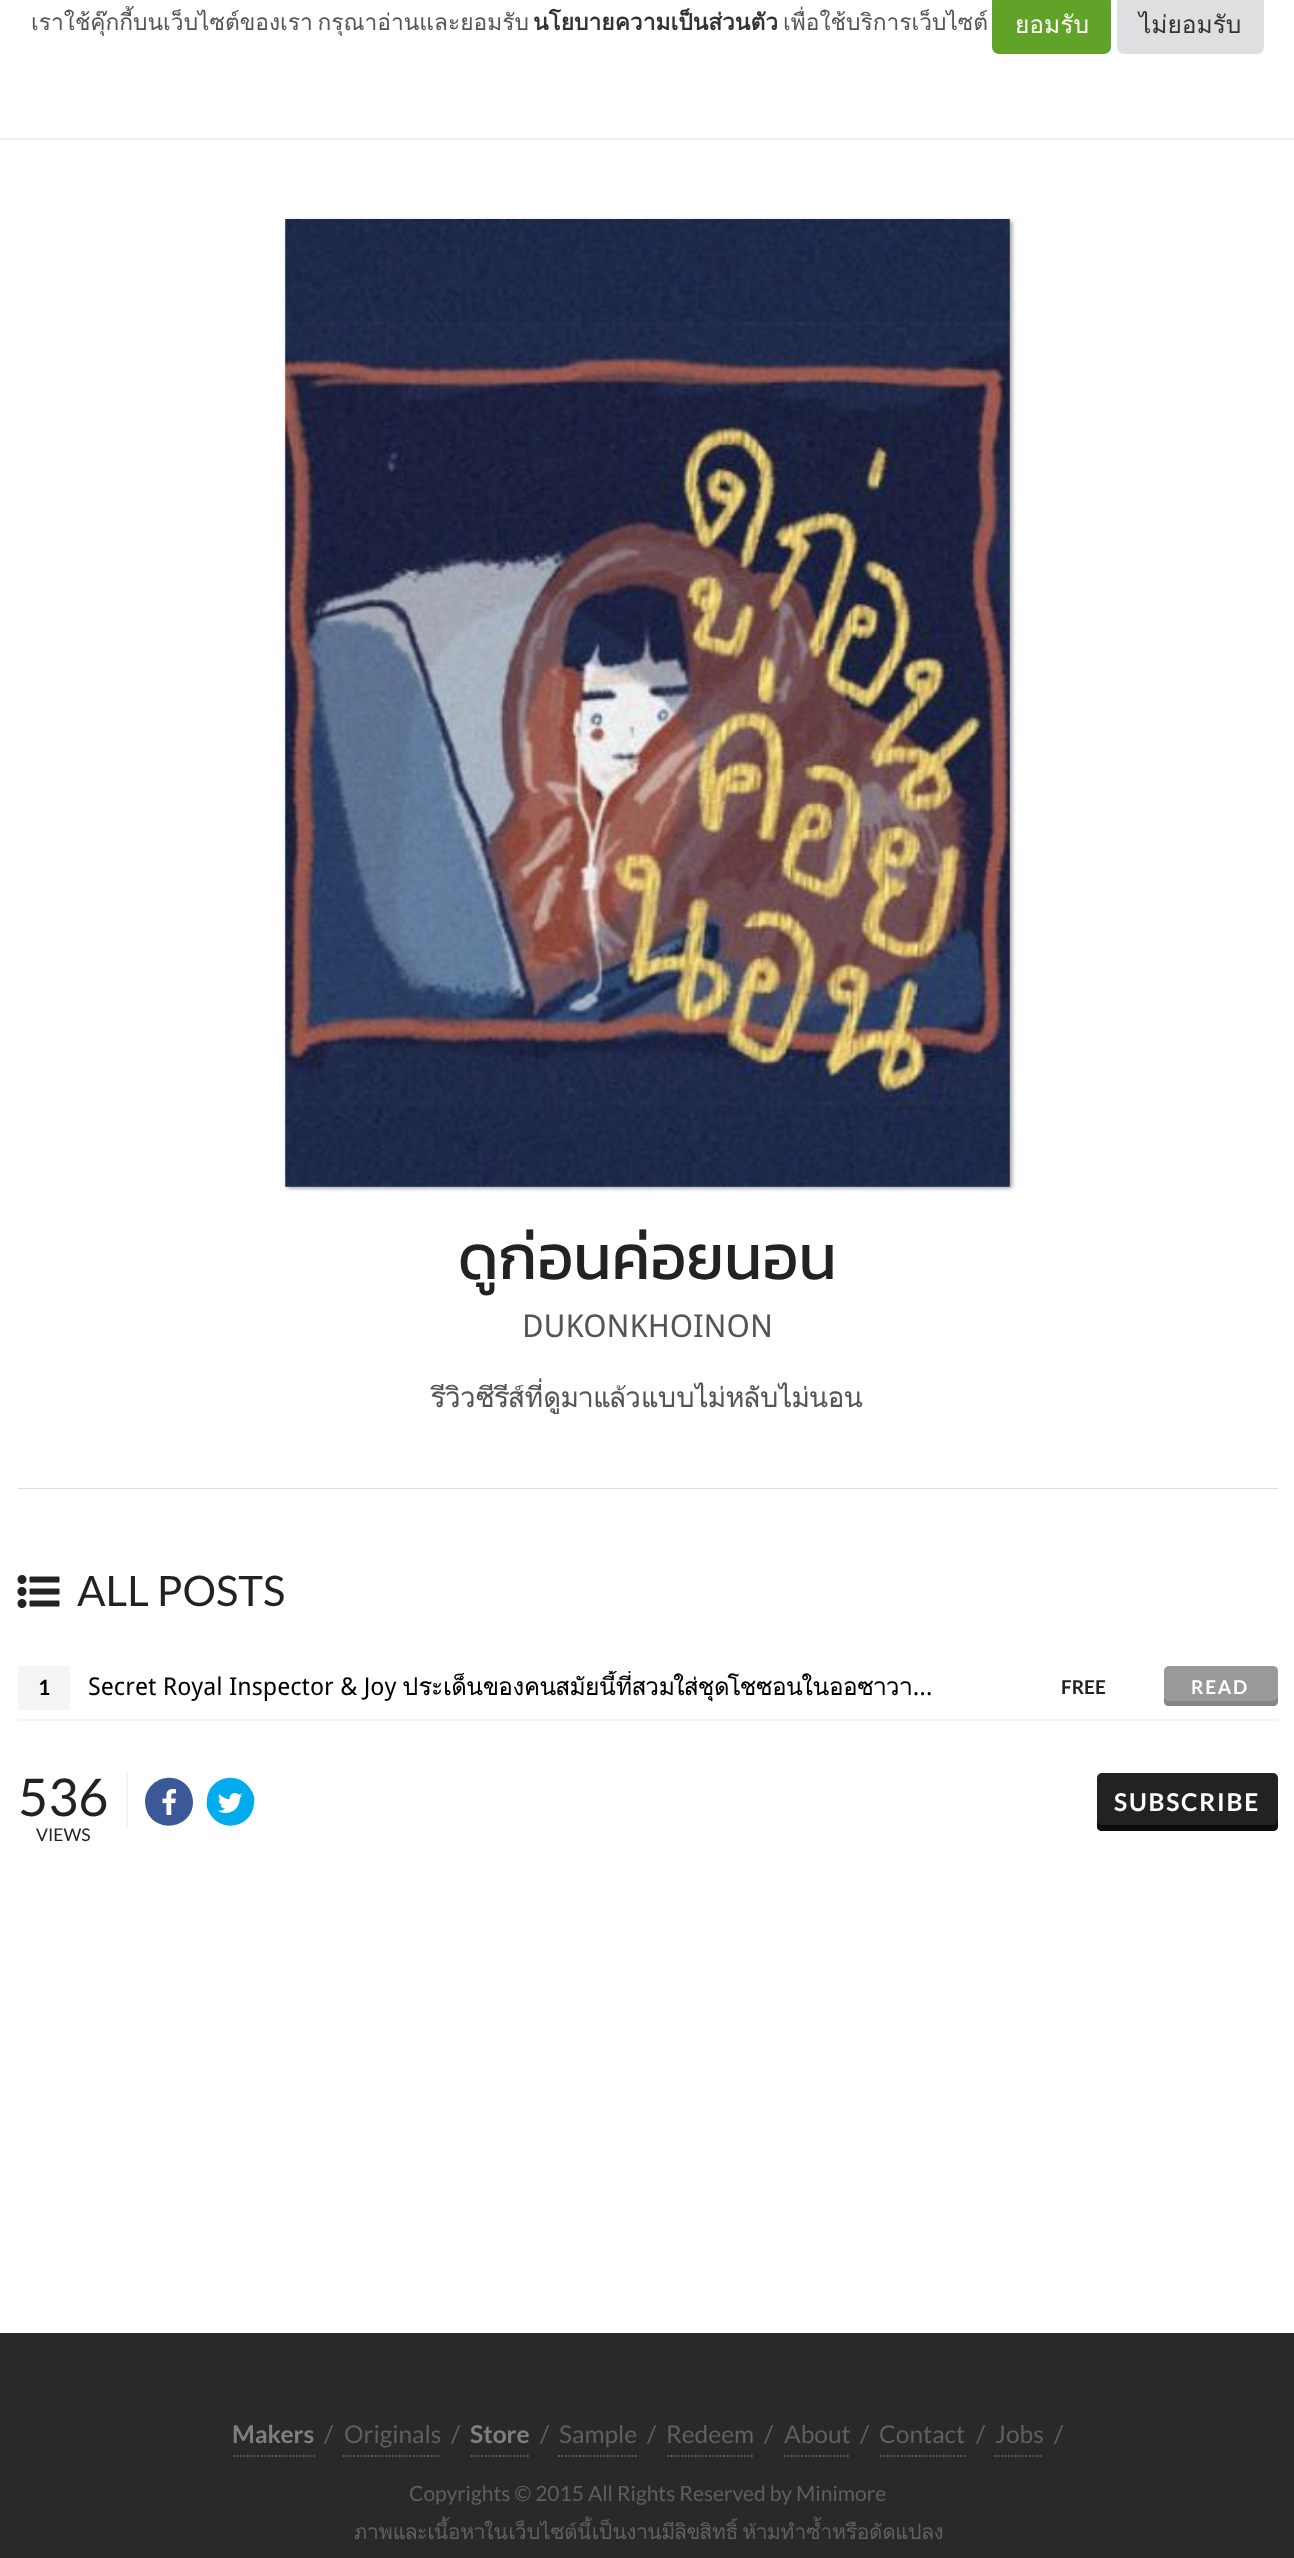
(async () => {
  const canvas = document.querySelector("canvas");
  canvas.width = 1294;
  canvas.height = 2558;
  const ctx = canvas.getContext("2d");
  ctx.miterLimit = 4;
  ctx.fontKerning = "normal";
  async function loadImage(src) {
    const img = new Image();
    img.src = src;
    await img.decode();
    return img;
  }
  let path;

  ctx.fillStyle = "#ffffff";
  ctx.fillRect(0, 0, 1294, 2558);
  ctx.fillStyle = "#eeeeee";
  ctx.fillRect(0, 138, 1294, 2);
  ctx.fillStyle = "#61a229";
  ctx.beginPath();
  ctx.roundRect(992, -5, 119, 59, 7);
  ctx.fill();
  ctx.fillStyle = "#dedfe0";
  ctx.beginPath();
  ctx.roundRect(1117, -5, 147, 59, 7);
  ctx.fill();
  ctx.fillStyle = "#dddddd";
  ctx.fillRect(18, 1488, 1260, 1);
  ctx.fillStyle = "#999999";
  ctx.filter = "blur(2px)";
  ctx.beginPath();
  ctx.rect(287, 221, 725, 967);
  ctx.fill();
  ctx.filter = "none";
  ctx.drawImage(await loadImage("img/1.png"), 285, 219, 725, 968);
  ctx.drawImage(await loadImage("img/2.png"), 17, 1575, 43, 33);
  ctx.fillStyle = "#f4f4f4";
  ctx.fillRect(18, 1719, 1260, 2);
  ctx.fillRect(18, 1666, 52, 44);
  ctx.fillStyle = "#999999";
  ctx.beginPath();
  ctx.roundRect(1164, 1666, 114, 40, 5);
  ctx.fill();
  ctx.fillStyle = "#858585";
  path = new Path2D("M1164 1696V1701C1164 1704 1166 1706 1169 1706H1273C1276 1706 1278 1704 1278 1701V1696C1278 1699 1275 1701 1272 1701H1169C1166 1701 1164 1699 1164 1696Z");
  ctx.fill(path);
  ctx.fillStyle = "#f4f4f4";
  ctx.fillRect(126, 1773, 2, 54);
  ctx.fillStyle = "#3b5998";
  path = new Path2D("M190 1790C192 1794 193 1799 193 1803C192 1827 160 1834 148 1814C146 1810 145 1805 145 1800C147 1777 178 1769 190 1790Z");
  ctx.fill(path);
  ctx.drawImage(await loadImage("img/3.png"), 162, 1789, 14, 26);
  ctx.fillStyle = "#00acee";
  path = new Path2D("M251 1790C254 1794 255 1799 254 1803C253 1827 222 1834 210 1814C207 1810 206 1805 207 1800C208 1777 239 1769 251 1790Z");
  ctx.fill(path);
  ctx.drawImage(await loadImage("img/4.png"), 217, 1793, 26, 20);
  ctx.fillStyle = "#222222";
  ctx.beginPath();
  ctx.roundRect(1097, 1773, 181, 58, 5);
  ctx.fill();
  ctx.fillStyle = "#0e0e0e";
  path = new Path2D("M1097 1820V1826C1097 1829 1099 1831 1102 1831H1273C1276 1831 1278 1829 1278 1826V1820C1278 1823 1275 1825 1272 1825H1102C1100 1825 1097 1823 1097 1820Z");
  ctx.fill(path);
  ctx.fillStyle = "#292929";
  ctx.fillRect(0, 2333, 1294, 225);
  path = new Path2D("M233 2456H315");
  ctx.strokeStyle = "#5f5f5f";
  ctx.lineWidth = 1.8;
  ctx.setLineDash([1.75, 1.75]);
  ctx.stroke(path);
  path = new Path2D("M343 2456H441");
  ctx.stroke(path);
  path = new Path2D("M471 2456H530");
  ctx.stroke(path);
  path = new Path2D("M558 2456H637");
  ctx.stroke(path);
  path = new Path2D("M667 2456H754");
  ctx.stroke(path);
  path = new Path2D("M784 2456H850.5");
  ctx.stroke(path);
  path = new Path2D("M880 2456H966");
  ctx.stroke(path);
  path = new Path2D("M994 2456H1043");
  ctx.stroke(path);
  ctx.wordSpacing = "-3px";
  ctx.font = "22.75px Loma";
  ctx.fillStyle = "#555555";
  ctx.fillText("เราใช้คุ๊กกี้บนเว็บไซต์ของเรา กรุณาอ่านและยอมรับ", 31, 30);
  ctx.wordSpacing = "0px";
  ctx.font = "bold 22.75px Loma";
  ctx.fillStyle = "#333333";
  ctx.fillText("นโยบายความเป็นส่วนตัว", 533, 30);
  ctx.font = "22.75px Loma";
  ctx.fillStyle = "#555555";
  ctx.fillText("เพื่อใช้บริการเว็บไซต์", 783, 30);
  ctx.font = "24.5px Loma";
  ctx.fillStyle = "#ffffff";
  ctx.fillText("ยอมรับ", 1015, 33);
  ctx.fillStyle = "#333333";
  ctx.fillText("ไม่ยอมรับ", 1139, 33);
  ctx.font = "63px Kanit";
  ctx.fillStyle = "#222222";
  ctx.fillText("ดูก่อนค่อยนอน", 458, 1279);
  ctx.font = "31.5px Droid Sans";
  ctx.fillStyle = "#555555";
  ctx.fillText("DUKONKHOINON", 522, 1337);
  ctx.font = "28px Droid Sans";
  ctx.fillText("รีวิวซีรีส์ที่ดูมาแล้วแบบไม่หลับไม่นอน", 431, 1407);
  ctx.font = "42px Lato";
  ctx.fillStyle = "#222222";
  ctx.fillText("ALL POSTS", 77, 1606);
  ctx.font = "bold 21px Lato";
  ctx.fillStyle = "#000000";
  ctx.fillText("1", 38, 1695);
  ctx.save();
  ctx.beginPath();
  ctx.rect(88, 1671, 875, 34);
  ctx.clip();
  ctx.font = "24.5px Droid Sans";
  ctx.fillText("Secret Royal Inspector & Joy ประเด็นของคนสมัยนี้ที่สวมใส่ชุดโชซอนในออซาวา…", 88, 1695);
  ctx.restore();
  ctx.font = "bold 19px Lato";
  ctx.fillStyle = "#222222";
  ctx.fillText("FREE", 1061, 1694);
  ctx.letterSpacing = "1.75px";
  ctx.fillStyle = "#ffffff";
  ctx.fillText("READ", 1191, 1694);
  ctx.letterSpacing = "0px";
  ctx.font = "52px Lato";
  ctx.fillStyle = "#222222";
  ctx.fillText("536", 18, 1816);
  ctx.font = "17.5px Lato";
  ctx.fillText("VIEWS", 36, 1841);
  ctx.letterSpacing = "1.75px";
  ctx.font = "bold 24.5px Lato";
  ctx.fillStyle = "#ffffff";
  ctx.fillText("SUBSCRIBE", 1114, 1811);
  ctx.letterSpacing = "0px";
  ctx.fillStyle = "#7f7f7f";
  ctx.fillText("Makers", 232, 2443);
  ctx.font = "24.5px Lato";
  ctx.fillStyle = "#5f5f5f";
  for (const [text, x, y] of [
    ["/", 324, 2443],
    ["Originals", 344, 2443],
    ["/", 451, 2443],
  ]) {
    ctx.fillText(text, x, y);
  }
  ctx.font = "bold 24.5px Lato";
  ctx.fillStyle = "#7f7f7f";
  ctx.fillText("Store", 470, 2443);
  ctx.font = "24.5px Lato";
  ctx.fillStyle = "#5f5f5f";
  for (const [text, x, y] of [
    ["/", 540, 2443],
    ["Sample", 559, 2443],
    ["/", 647, 2443],
    ["Redeem", 666, 2443],
    ["/", 764, 2443],
    ["About", 784, 2443],
    ["/", 860, 2443],
    ["Contact", 879, 2443],
    ["/", 976, 2443],
    ["Jobs", 995, 2443],
    ["/", 1054, 2443],
  ]) {
    ctx.fillText(text, x, y);
  }
  ctx.font = "21px Lato";
  ctx.fillText("Copyrights © 2015 All Rights Reserved by Minimore", 409, 2501);
  ctx.wordSpacing = "-1px";
  ctx.font = "21px Droid Sans";
  ctx.fillText("ภาพและเนื้อหาในเว็บไซต์นี้เป็นงานมีลิขสิทธิ์ ห้ามทำซ้ำหรือดัดแปลง", 354, 2539);
})();
